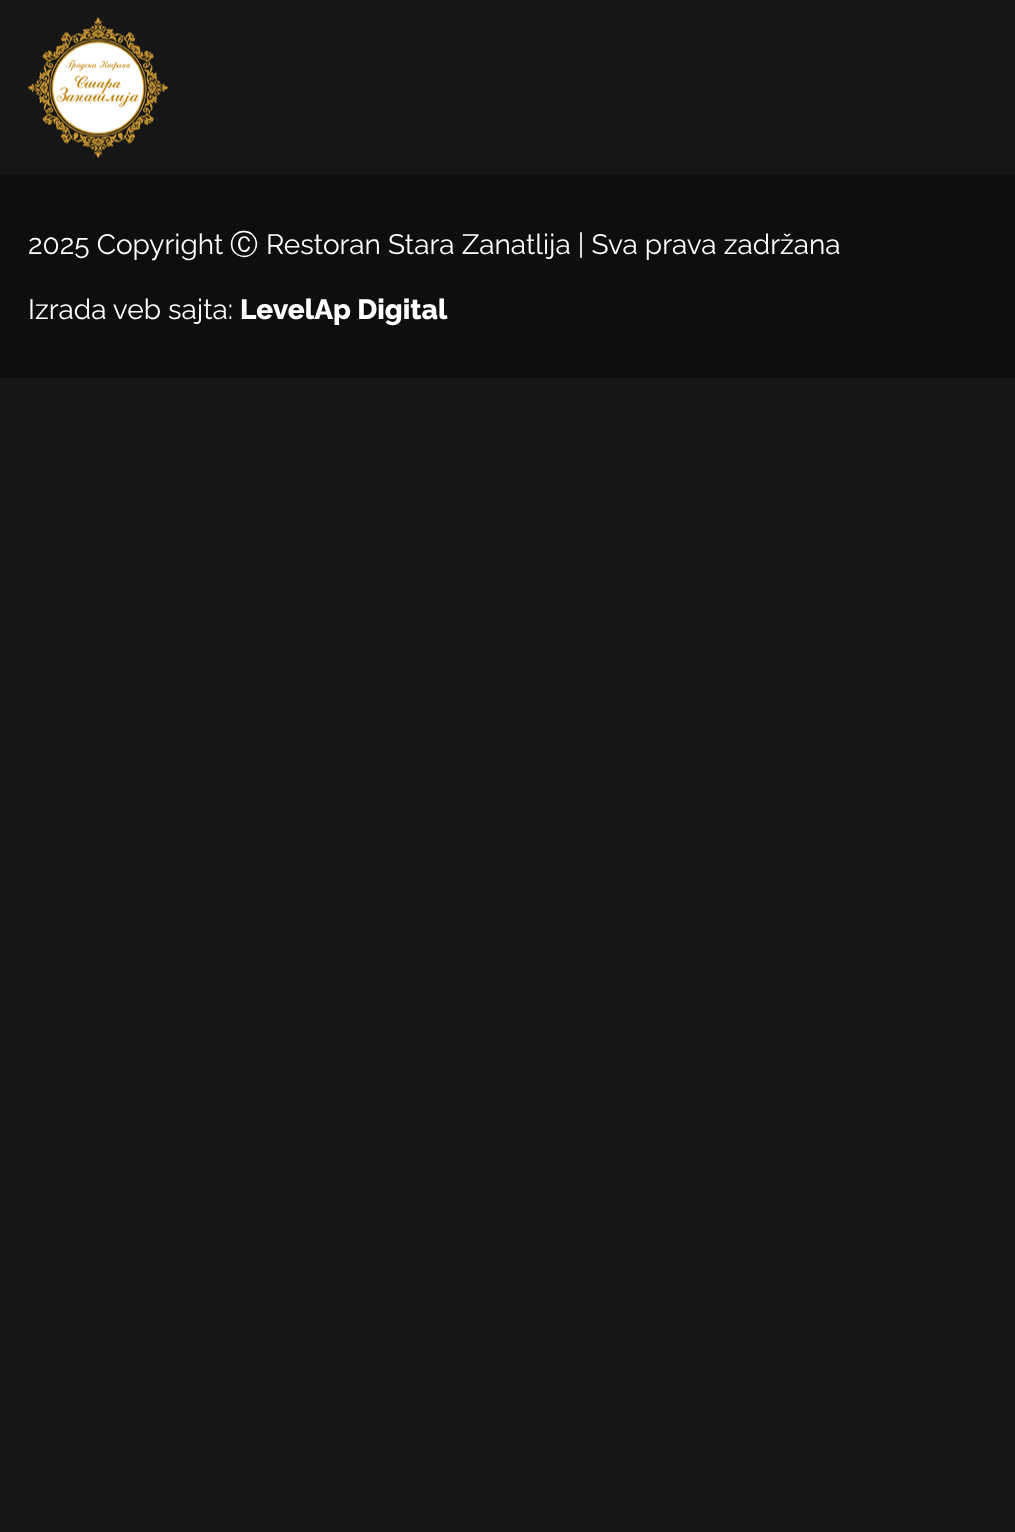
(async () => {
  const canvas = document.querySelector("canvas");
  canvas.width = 1015;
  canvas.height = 1532;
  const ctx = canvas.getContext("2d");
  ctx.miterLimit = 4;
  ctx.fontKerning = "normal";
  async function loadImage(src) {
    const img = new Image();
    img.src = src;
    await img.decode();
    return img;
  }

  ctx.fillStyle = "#161616";
  ctx.fillRect(0, 0, 1015, 1532);
  ctx.drawImage(await loadImage("img/1.png"), 28, 17, 140, 141);
  ctx.fillStyle = "#0e0e0e";
  ctx.fillRect(0, 175, 1015, 203);
  ctx.font = "100 28px Raleway";
  ctx.fillStyle = "#ffffff";
  ctx.fillText("2025 Copyright", 28, 254);
  ctx.font = "500 28px WenQuanYi Zen Hei";
  ctx.fillText("Ⓒ", 230, 254);
  ctx.font = "100 28px Raleway";
  ctx.fillText("Restoran Stara Zanatlija | Sva prava zadržana", 266, 254);
  ctx.fillText("Izrada veb sajta:", 28, 319);
  ctx.font = "100 28px 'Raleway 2'";
  ctx.fillText("LevelAp Digital", 240, 319);
})();
